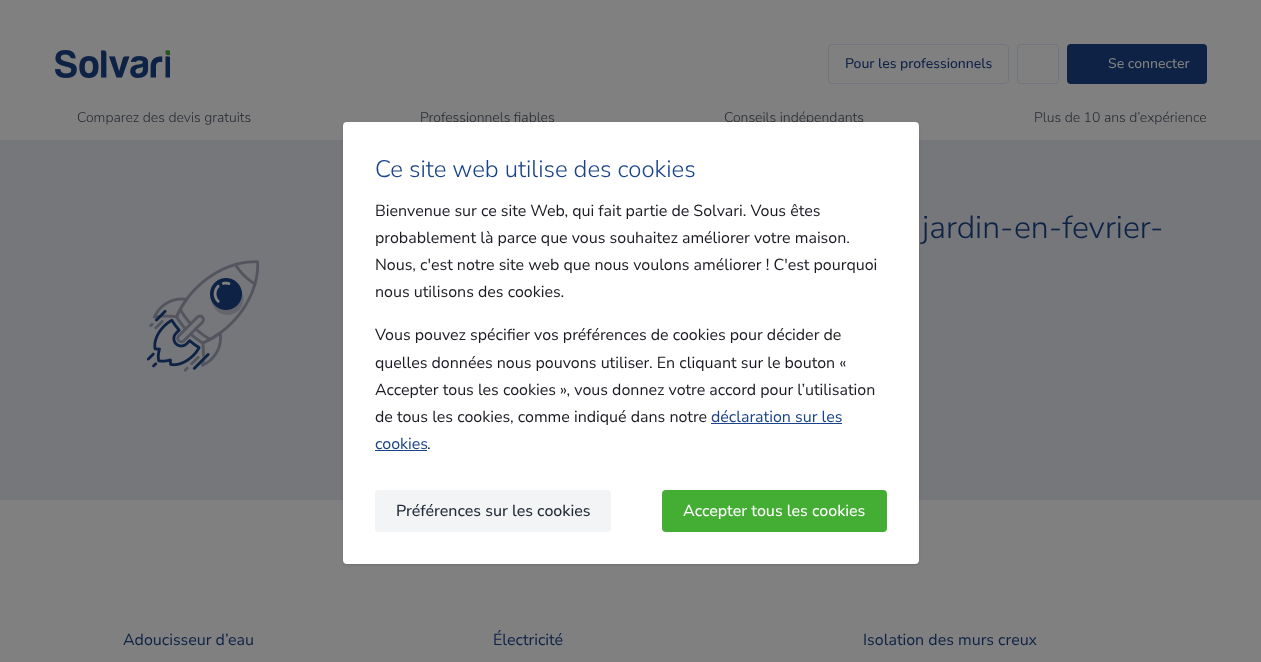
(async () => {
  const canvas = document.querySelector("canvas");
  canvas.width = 1261;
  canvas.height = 662;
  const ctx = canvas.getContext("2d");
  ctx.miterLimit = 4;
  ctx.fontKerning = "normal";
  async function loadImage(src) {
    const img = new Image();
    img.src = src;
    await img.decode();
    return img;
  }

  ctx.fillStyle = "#808080";
  ctx.fillRect(0, 0, 1261, 662);
  ctx.drawImage(await loadImage("img/1.png"), 55, 50, 115, 28);
  ctx.beginPath();
  ctx.roundRect(828.5, 44.5, 180, 39, 3.5);
  ctx.strokeStyle = "#71757d";
  ctx.stroke();
  ctx.beginPath();
  ctx.roundRect(1017.5, 44.5, 41, 39, 3.5);
  ctx.stroke();
  ctx.fillStyle = "#0d2245";
  ctx.beginPath();
  ctx.roundRect(1067, 44, 140, 40, 4);
  ctx.fill();
  ctx.fillStyle = "#75777a";
  ctx.fillRect(0, 140, 1261, 360);
  ctx.fillStyle = "rgba(0, 0, 0, 0.1)";
  ctx.filter = "blur(1px)";
  ctx.beginPath();
  ctx.roundRect(344, 124, 574, 440, 3);
  ctx.fill();
  ctx.filter = "none";
  ctx.filter = "blur(1.5px)";
  ctx.beginPath();
  ctx.roundRect(343, 123, 576, 442, 4);
  ctx.fill();
  ctx.filter = "none";
  ctx.drawImage(await loadImage("img/2.png"), 147, 260, 112, 112);
  ctx.font = "500 14px Nunito Sans";
  ctx.fillStyle = "#0d2245";
  ctx.fillText("Pour les professionnels", 845, 68);
  ctx.fillStyle = "#808080";
  ctx.fillText("Se connecter", 1108, 68);
  ctx.font = "300 14px Nunito Sans";
  ctx.fillStyle = "#262b32";
  for (const [text, x, y] of [
    ["Comparez des devis gratuits", 77, 122],
    ["Professionnels fiables", 420, 122],
    ["Conseils indépendants", 724, 122],
    ["Plus de 10 ans d’expérience", 1034, 122],
  ]) {
    ctx.fillText(text, x, y);
  }
  ctx.fillStyle = "#ffffff";
  ctx.beginPath();
  ctx.roundRect(343, 122, 576, 442, 4);
  ctx.fill();
  ctx.font = "300 24px Nunito Sans";
  ctx.fillStyle = "#1a4389";
  ctx.fillText("Ce site web utilise des cookies", 375, 177);
  ctx.font = "16px Nunito Sans";
  ctx.fillStyle = "#1b1b23";
  for (const [text, x, y] of [
    ["Bienvenue sur ce site Web, qui fait partie de Solvari. Vous êtes", 375, 216],
    ["probablement là parce que vous souhaitez améliorer votre maison.", 375, 243],
    ["Nous, c'est notre site web que nous voulons améliorer ! C'est pourquoi", 375, 270],
    ["nous utilisons des cookies.", 375, 297],
    ["Vous pouvez spécifier vos préférences de cookies pour décider de", 375, 340],
    ["quelles données nous pouvons utiliser. En cliquant sur le bouton «", 375, 368],
    ["Accepter tous les cookies », vous donnez votre accord pour l’utilisation", 375, 395],
    ["de tous les cookies, comme indiqué dans notre", 375, 422],
  ]) {
    ctx.fillText(text, x, y);
  }
  ctx.fillStyle = "#1a4389";
  ctx.fillText("déclaration sur les", 711, 422);
  ctx.fillRect(711, 423, 131, 1);
  ctx.fillText("cookies", 375, 449);
  ctx.fillRect(375, 450, 52, 1);
  ctx.fillStyle = "#1b1b23";
  ctx.fillText(".", 427, 449);
  ctx.fillStyle = "#f3f4f6";
  ctx.beginPath();
  ctx.roundRect(375, 490, 236, 42, 4);
  ctx.fill();
  ctx.font = "500 16px Nunito Sans";
  ctx.fillStyle = "#1f2937";
  ctx.fillText("Préférences sur les cookies", 396, 516);
  ctx.fillStyle = "#44ad34";
  ctx.beginPath();
  ctx.roundRect(662, 490, 225, 42, 4);
  ctx.fill();
  ctx.fillStyle = "#ffffff";
  ctx.fillText("Accepter tous les cookies", 683, 516);
  ctx.font = "300 32px Nunito Sans";
  ctx.fillStyle = "#0d2245";
  ctx.fillText("jardin-en-fevrier-", 922, 238);
  ctx.font = "16px Nunito Sans";
  for (const [text, x, y] of [
    ["Adoucisseur d’eau", 123, 645],
    ["Électricité", 493, 645],
    ["Isolation des murs creux", 863, 645],
  ]) {
    ctx.fillText(text, x, y);
  }
})();
